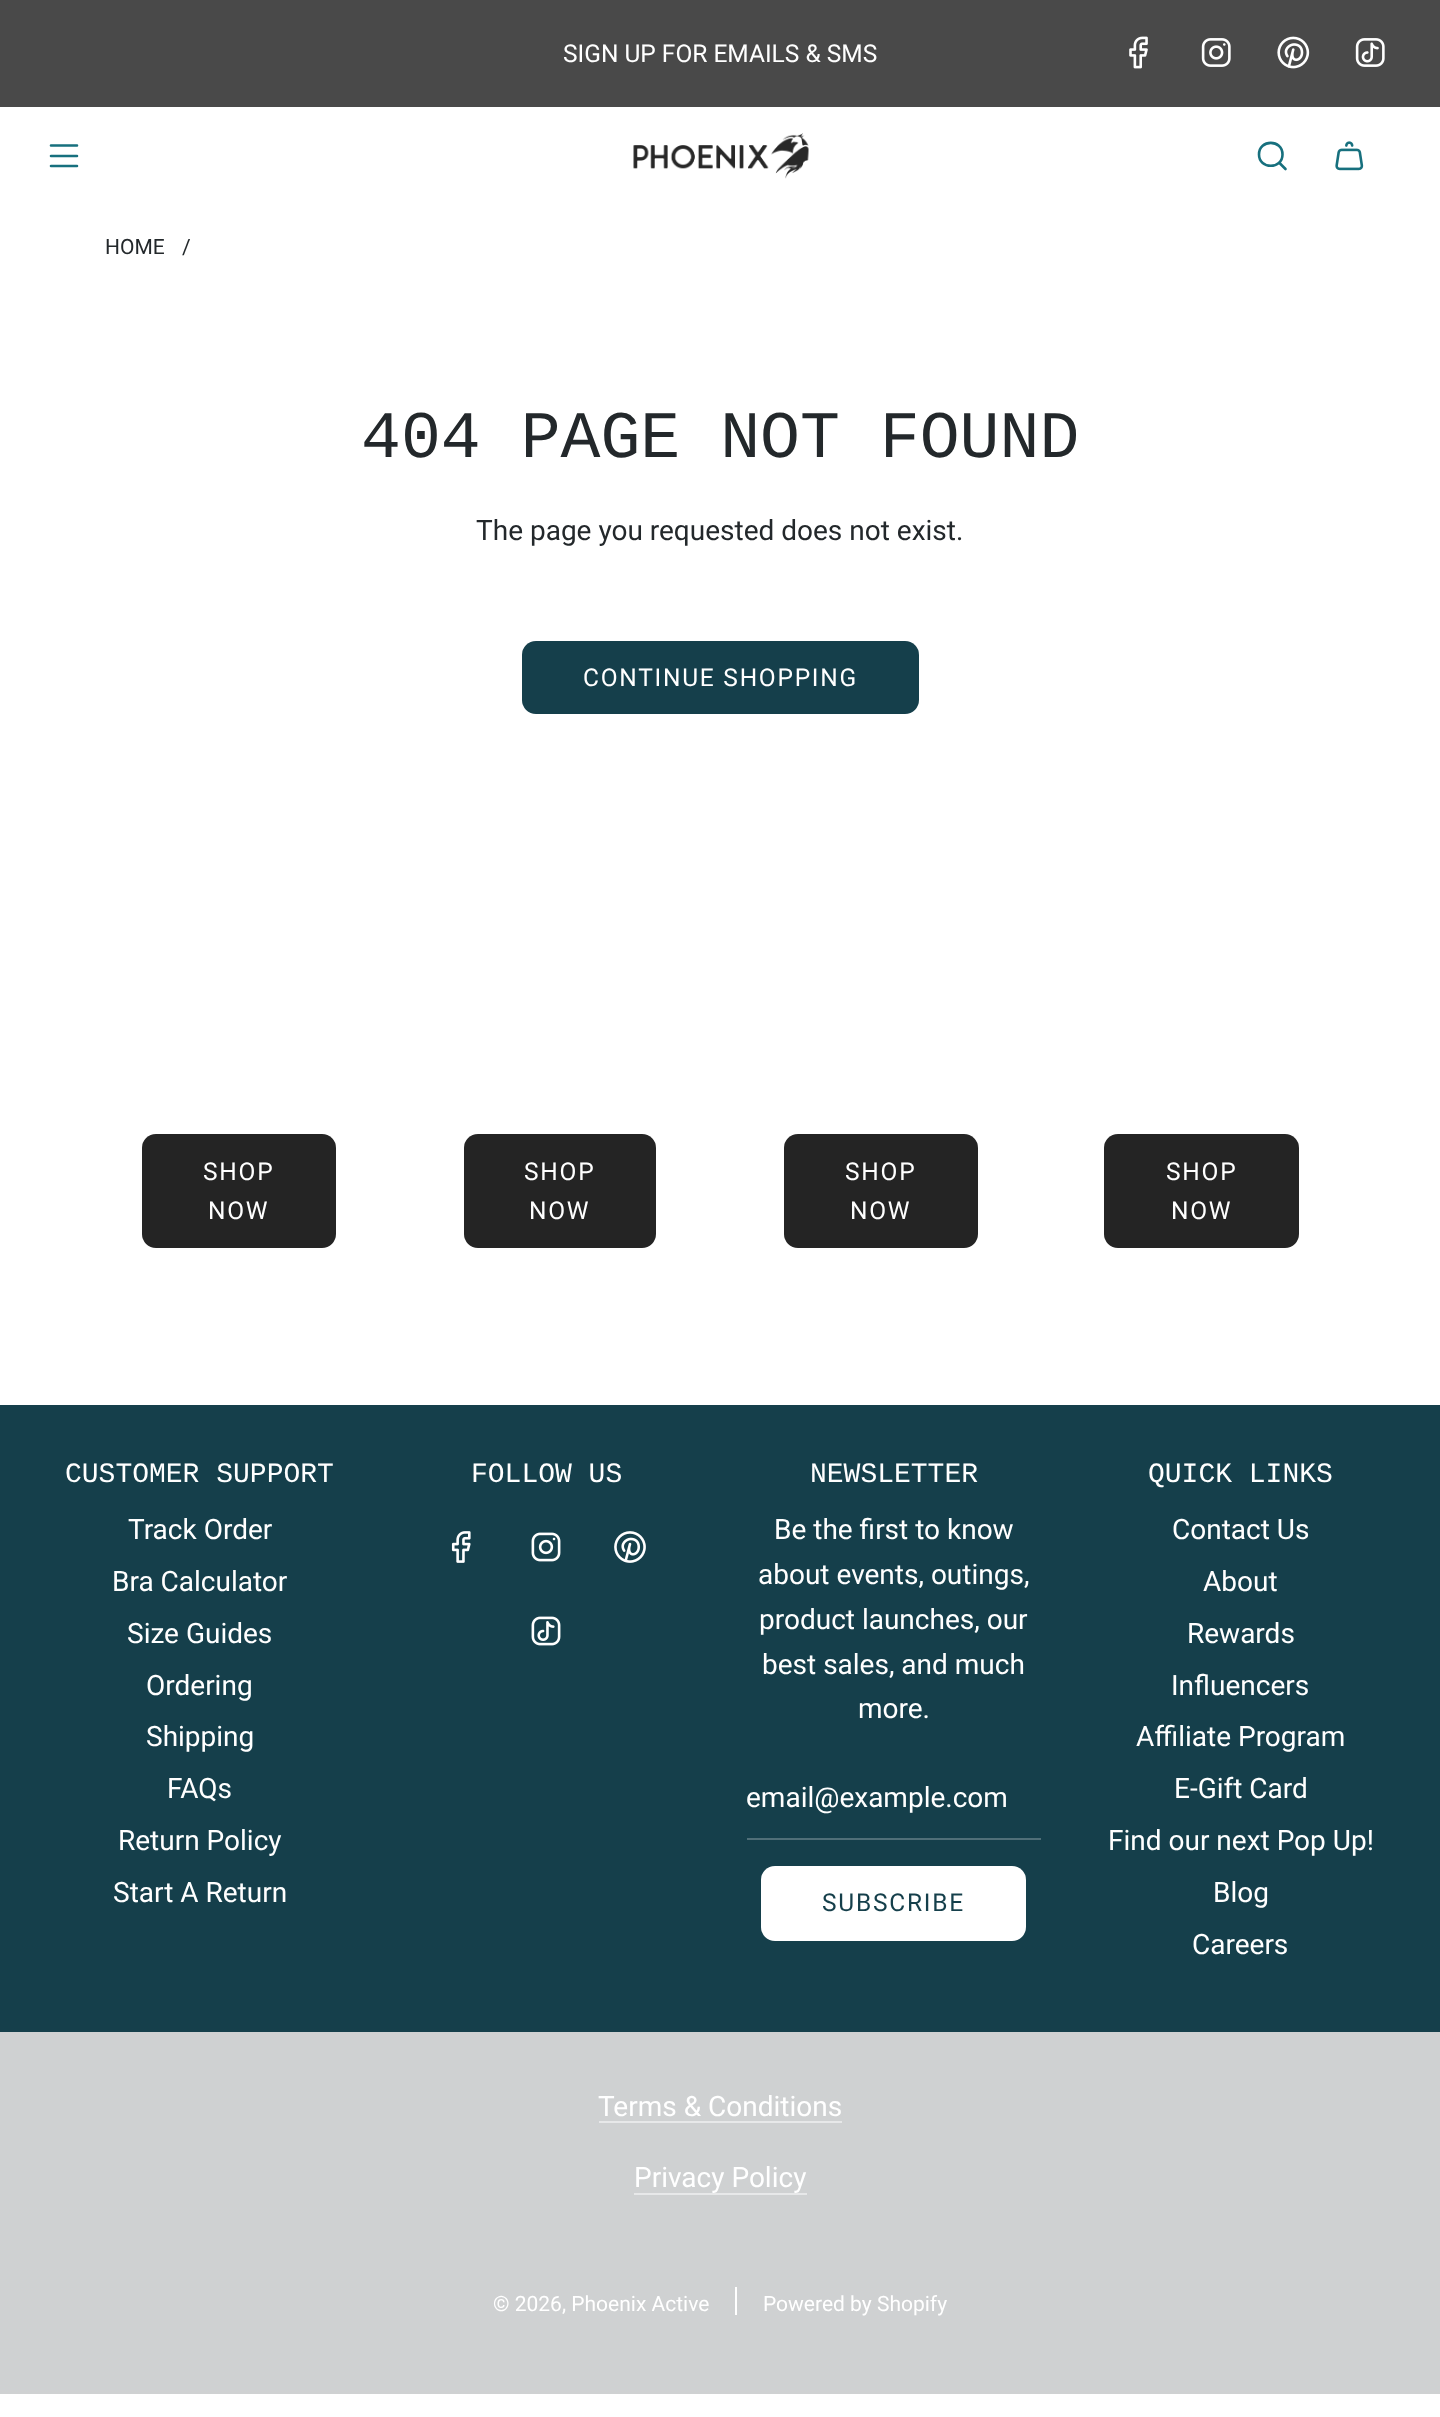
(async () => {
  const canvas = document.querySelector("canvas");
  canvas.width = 1440;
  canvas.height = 2417;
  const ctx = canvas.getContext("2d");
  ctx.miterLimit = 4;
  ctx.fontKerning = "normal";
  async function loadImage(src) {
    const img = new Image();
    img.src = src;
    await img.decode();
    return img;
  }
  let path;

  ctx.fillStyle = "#ffffff";
  ctx.fillRect(0, 0, 1440, 2417);
  ctx.fillStyle = "#494949";
  ctx.fillRect(0, 0, 1440, 107);
  ctx.drawImage(await loadImage("img/1.png"), 1129, 36, 19, 33);
  ctx.drawImage(await loadImage("img/2.png"), 1201, 38, 30, 29);
  ctx.drawImage(await loadImage("img/3.png"), 1277, 36, 33, 33);
  ctx.drawImage(await loadImage("img/4.png"), 1355, 38, 30, 29);
  path = new Path2D("M51 145.5H77M51 156H77M51 166H77");
  ctx.strokeStyle = "#17707e";
  ctx.lineWidth = 2.6;
  ctx.lineCap = "round";
  ctx.lineJoin = "round";
  ctx.stroke(path);
  ctx.drawImage(await loadImage("img/5.png"), 633, 133, 176, 46);
  path = new Path2D("M1279.5 163L1285.5 169M1259 154.5C1259 169.5 1282.5 169.5 1282.5 154.5C1282.5 139 1259 139 1259 154.5Z");
  ctx.stroke(path);
  ctx.drawImage(await loadImage("img/6.png"), 1335, 141, 29, 30);
  ctx.fillStyle = "#153f4b";
  ctx.beginPath();
  ctx.roundRect(522, 641, 397, 73, 14);
  ctx.fill();
  ctx.fillStyle = "#242424";
  ctx.beginPath();
  ctx.roundRect(142, 1134, 194, 114, 14);
  ctx.fill();
  ctx.beginPath();
  ctx.roundRect(464, 1134, 192, 114, 14);
  ctx.fill();
  ctx.beginPath();
  ctx.roundRect(784, 1134, 194, 114, 14);
  ctx.fill();
  ctx.beginPath();
  ctx.roundRect(1104, 1134, 195, 114, 14);
  ctx.fill();
  ctx.fillStyle = "#153f4b";
  ctx.fillRect(0, 1405, 1440, 627);
  ctx.drawImage(await loadImage("img/7.png"), 451, 1531, 20, 32);
  ctx.drawImage(await loadImage("img/8.png"), 531, 1532, 30, 30);
  ctx.drawImage(await loadImage("img/9.png"), 614, 1531, 32, 32);
  ctx.drawImage(await loadImage("img/10.png"), 531, 1616, 30, 30);
  ctx.fillStyle = "#506f78";
  ctx.fillRect(747, 1838, 294, 2);
  ctx.fillStyle = "#ffffff";
  ctx.beginPath();
  ctx.roundRect(761, 1866, 265, 75, 14);
  ctx.fill();
  for (const [x, y, w, h, color] of [
    [0, 2032, 1440, 362, "#cfd1d2"],
    [599, 2121, 243, 2, "#e7e8e9"],
    [634, 2193, 173, 2, "#e7e8e9"],
    [735, 2287, 2, 28, "#ffffff"],
  ]) {
    ctx.fillStyle = color;
    ctx.fillRect(x, y, w, h);
  }
  ctx.font = "24.5px Roboto";
  ctx.fillText("SIGN UP FOR EMAILS & SMS", 563, 62);
  ctx.font = "21px Roboto";
  ctx.fillStyle = "#23282b";
  ctx.fillText("HOME", 105, 254);
  ctx.fillText("/", 182, 254);
  ctx.font = "66.5px Liberation Mono";
  ctx.fillText("404 PAGE NOT FOUND", 361, 457);
  ctx.font = "28px Roboto";
  ctx.fillText("The page you requested does not exist.", 476, 540);
  ctx.letterSpacing = "1.75px";
  ctx.font = "24.5px Roboto";
  ctx.fillStyle = "#ffffff";
  for (const [text, x, y] of [
    ["CONTINUE SHOPPING", 583, 686],
    ["SHOP", 203, 1180],
    ["NOW", 208, 1219],
    ["SHOP", 524, 1180],
    ["NOW", 529, 1219],
    ["SHOP", 845, 1180],
    ["NOW", 850, 1219],
    ["SHOP", 1166, 1180],
    ["NOW", 1171, 1219],
  ]) {
    ctx.fillText(text, x, y);
  }
  ctx.letterSpacing = "0px";
  ctx.font = "28px Liberation Mono";
  ctx.fillText("CUSTOMER SUPPORT", 65, 1482);
  ctx.font = "28px Roboto";
  for (const [text, x, y] of [
    ["Track Order", 128, 1539],
    ["Bra Calculator", 112, 1591],
    ["Size Guides", 127, 1643],
    ["Ordering", 146, 1695],
    ["Shipping", 146, 1746],
    ["FAQs", 167, 1798],
    ["Return Policy", 118, 1850],
    ["Start A Return", 113, 1902],
  ]) {
    ctx.fillText(text, x, y);
  }
  ctx.font = "28px Liberation Mono";
  ctx.fillText("FOLLOW US", 471, 1482);
  ctx.fillText("NEWSLETTER", 810, 1482);
  ctx.font = "28px Roboto";
  for (const [text, x, y] of [
    ["Be the first to know", 774, 1539],
    ["about events, outings,", 758, 1584],
    ["product launches, our", 759, 1629],
    ["best sales, and much", 762, 1674],
    ["more.", 858, 1718],
    ["email@example.com", 746, 1807],
  ]) {
    ctx.fillText(text, x, y);
  }
  ctx.letterSpacing = "1.75px";
  ctx.font = "24.5px Roboto";
  ctx.fillStyle = "#153f4b";
  ctx.fillText("SUBSCRIBE", 822, 1911);
  ctx.letterSpacing = "0px";
  ctx.font = "28px Liberation Mono";
  ctx.fillStyle = "#ffffff";
  ctx.fillText("QUICK LINKS", 1148, 1482);
  ctx.font = "28px Roboto";
  for (const [text, x, y] of [
    ["Contact Us", 1172, 1539],
    ["About", 1203, 1591],
    ["Rewards", 1187, 1643],
    ["Influencers", 1171, 1695],
    ["Affiliate Program", 1136, 1746],
    ["E-Gift Card", 1174, 1798],
    ["Find our next Pop Up!", 1108, 1850],
    ["Blog", 1213, 1902],
    ["Careers", 1192, 1954],
    ["Terms & Conditions", 598, 2116],
    ["Privacy Policy", 634, 2187],
  ]) {
    ctx.fillText(text, x, y);
  }
  ctx.font = "21px Roboto";
  ctx.fillText("© 2026, Phoenix Active", 493, 2311);
  ctx.fillText("Powered by Shopify", 763, 2311);
})();
